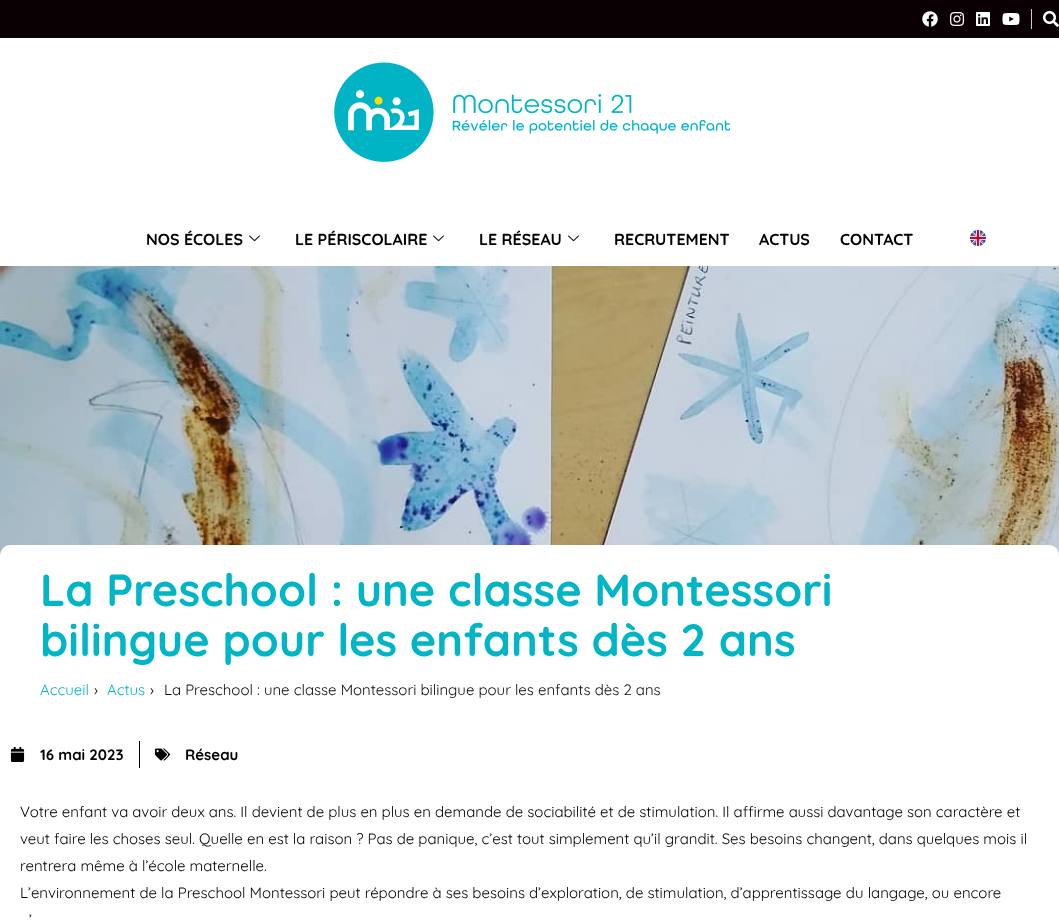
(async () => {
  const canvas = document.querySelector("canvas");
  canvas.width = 1059;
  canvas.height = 922;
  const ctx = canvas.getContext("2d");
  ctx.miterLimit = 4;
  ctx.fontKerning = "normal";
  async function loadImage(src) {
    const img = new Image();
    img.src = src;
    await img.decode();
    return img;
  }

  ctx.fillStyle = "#ffffff";
  ctx.fillRect(0, 0, 1059, 922);
  ctx.fillStyle = "#0a0004";
  ctx.fillRect(0, 0, 1059, 37);
  ctx.fillStyle = "#0a0a0a";
  ctx.fillRect(0, 37, 1059, 1);
  ctx.drawImage(await loadImage("img/1.png"), 922, 11, 16, 16);
  ctx.drawImage(await loadImage("img/2.png"), 950, 12, 14, 14);
  ctx.drawImage(await loadImage("img/3.png"), 976, 12, 14, 14);
  ctx.drawImage(await loadImage("img/4.png"), 1002, 13, 18, 12);
  ctx.fillStyle = "#cccccc";
  ctx.fillRect(1031, 9, 1, 20);
  ctx.drawImage(await loadImage("img/5.png"), 1043, 11, 16, 16);
  ctx.drawImage(await loadImage("img/6.png"), 334, 62, 396, 100);
  ctx.drawImage(await loadImage("img/7.png"), 249, 235, 11, 7);
  ctx.drawImage(await loadImage("img/7.png"), 433, 235, 11, 7);
  ctx.drawImage(await loadImage("img/7.png"), 568, 235, 11, 7);
  ctx.drawImage(await loadImage("img/8.png"), 970, 230, 16, 16);
  ctx.drawImage(await loadImage("img/9.png"), 0, 266, 1059, 289);
  ctx.fillStyle = "#ffffff";
  ctx.beginPath();
  ctx.roundRect(0, 545, 1059, 171, [10, 10, 0, 0]);
  ctx.fill();
  ctx.drawImage(await loadImage("img/10.png"), 10, 747, 15, 15);
  ctx.fillStyle = "#000000";
  ctx.fillRect(139, 741, 1, 27);
  ctx.drawImage(await loadImage("img/11.png"), 155, 748, 15, 13);
  ctx.font = "bold 16px Quicksand";
  for (const [text, x, y] of [
    ["NOS ÉCOLES", 146, 245],
    ["LE PÉRISCOLAIRE", 295, 245],
    ["LE RÉSEAU", 479, 245],
    ["RECRUTEMENT", 614, 245],
    ["ACTUS", 759, 245],
    ["CONTACT", 840, 245],
  ]) {
    ctx.fillText(text, x, y);
  }
  ctx.font = "bold 45px Quicksand";
  ctx.fillStyle = "#00b5c6";
  ctx.fillText("La Preschool : une classe Montessori", 40, 606);
  ctx.fillText("bilingue pour les enfants dès 2 ans", 40, 656);
  ctx.font = "15px Quicksand";
  ctx.fillText("Accueil", 40, 695);
  ctx.fillStyle = "#0a0a0a";
  ctx.fillText("›", 94, 695);
  ctx.fillStyle = "#00b5c6";
  ctx.fillText("Actus", 107, 695);
  ctx.fillStyle = "#0a0a0a";
  ctx.fillText("›", 150, 695);
  ctx.fillText("La Preschool : une classe Montessori bilingue pour les enfants dès 2 ans", 164, 695);
  ctx.font = "bold 15px Quicksand";
  ctx.fillStyle = "#000000";
  ctx.fillText("16 mai 2023", 40, 760);
  ctx.fillText("Réseau", 185, 760);
  ctx.font = "15px Quicksand";
  for (const [text, x, y] of [
    ["Votre enfant va avoir deux ans. Il devient de plus en plus en demande de sociabilité et de stimulation. Il affirme aussi davantage son caractère et", 20, 817],
    ["veut faire les choses seul. Quelle en est la raison ? Pas de panique, c’est tout simplement qu’il grandit. Ses besoins changent, dans quelques mois il", 20, 844],
    ["rentrera même à l’école maternelle.", 20, 871],
    ["L’environnement de la Preschool Montessori peut répondre à ses besoins d’exploration, de stimulation, d’apprentissage du langage, ou encore", 20, 898],
    ["’", 29, 925],
  ]) {
    ctx.fillText(text, x, y);
  }
})();
